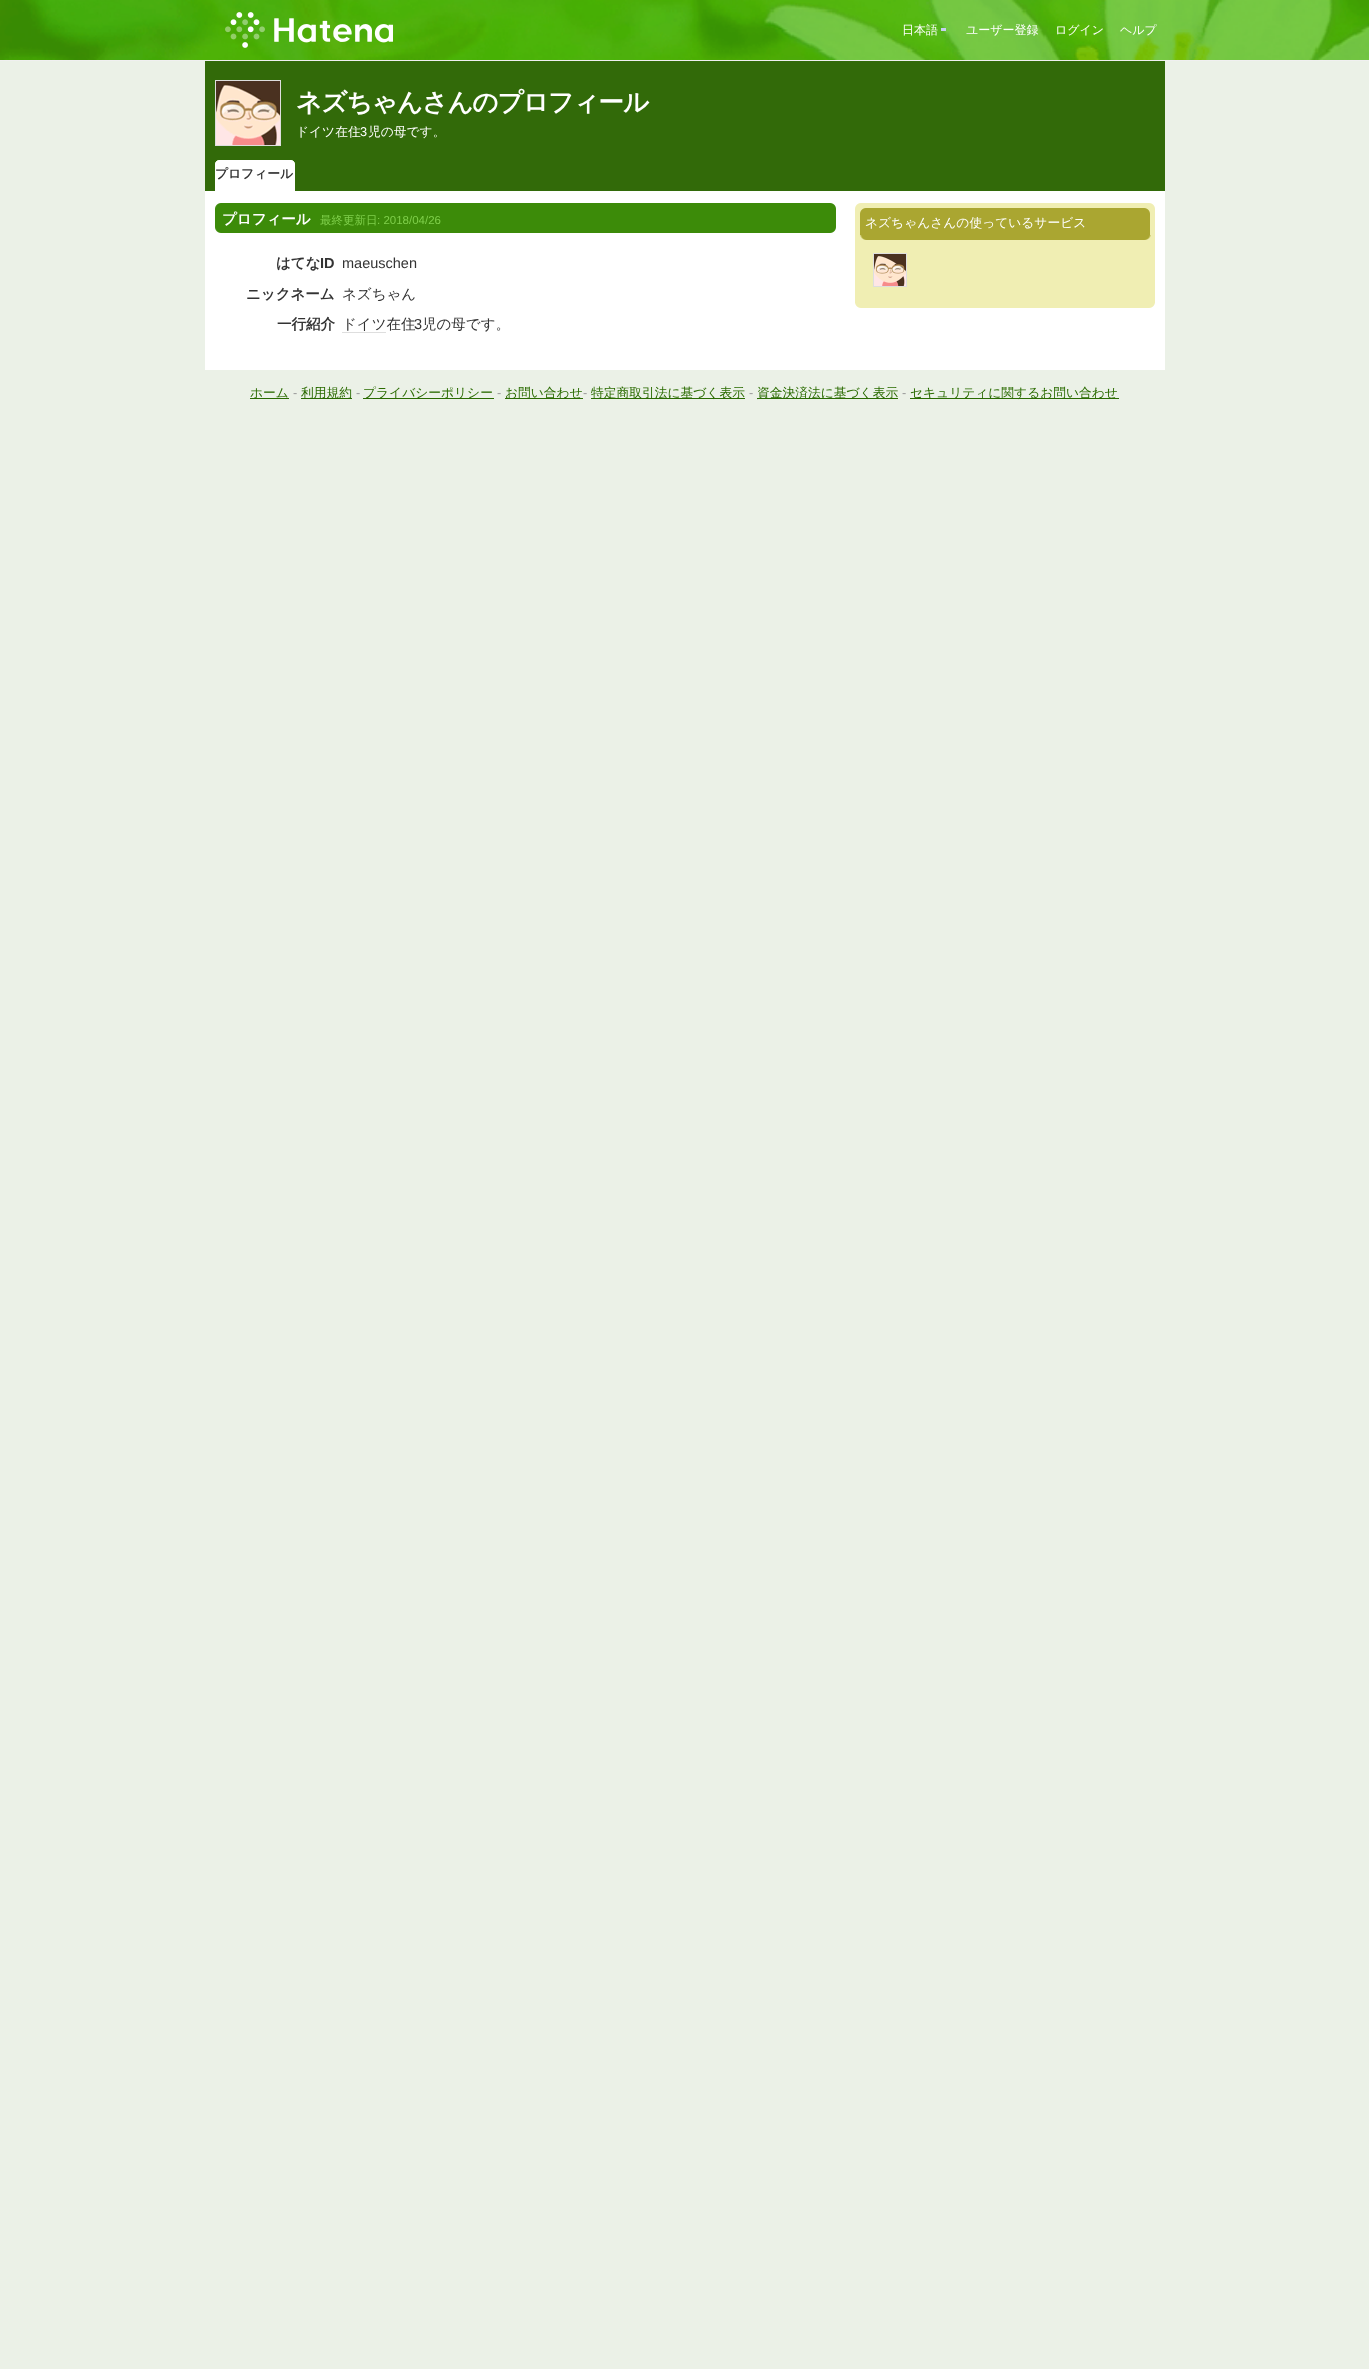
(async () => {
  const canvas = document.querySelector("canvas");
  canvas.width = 1369;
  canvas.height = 2369;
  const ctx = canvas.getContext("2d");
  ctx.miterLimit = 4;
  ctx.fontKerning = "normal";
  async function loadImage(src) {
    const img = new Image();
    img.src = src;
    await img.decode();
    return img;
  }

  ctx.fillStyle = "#ebf1e7";
  ctx.fillRect(0, 0, 1369, 2369);
  ctx.drawImage(await loadImage("img/1.png"), 0, 0, 1369, 60);
  ctx.fillStyle = "#f0f0f0";
  ctx.fillRect(0, 60, 1369, 1);
  ctx.drawImage(await loadImage("img/2.png"), 225, 12, 168, 36);
  ctx.fillStyle = "#c6d0f3";
  ctx.fillRect(941, 28, 5, 3);
  ctx.fillStyle = "#326a09";
  ctx.fillRect(205, 61, 960, 130);
  ctx.strokeStyle = "#dedede";
  ctx.strokeRect(215.5, 80.5, 65, 65);
  ctx.drawImage(await loadImage("img/3.png"), 216, 81, 64, 64);
  ctx.drawImage(await loadImage("img/4.png"), 215, 160, 80, 31);
  ctx.fillStyle = "#ffffff";
  ctx.fillRect(205, 191, 960, 179);
  ctx.drawImage(await loadImage("img/5.png"), 215, 203, 621, 30);
  ctx.fillStyle = "#dedede";
  ctx.fillRect(342, 332, 44, 1);
  ctx.fillStyle = "#f0eeb3";
  ctx.fillRect(855, 235, 300, 68);
  ctx.drawImage(await loadImage("img/6.png"), 855, 303, 300, 5);
  ctx.drawImage(await loadImage("img/7.png"), 855, 203, 300, 32);
  ctx.drawImage(await loadImage("img/8.png"), 860, 235, 291, 5);
  ctx.strokeRect(873.5, 253.5, 33, 33);
  ctx.drawImage(await loadImage("img/9.png"), 874, 254, 32, 32);
  for (const [x, y, w, h, color] of [
    [250, 398, 39, 1, "#2a6b01"],
    [301, 398, 51, 1, "#2a6b01"],
    [363, 398, 131, 1, "#2a6b01"],
    [505, 398, 78, 1, "#2a6b01"],
    [591, 398, 154, 1, "#2a6b01"],
    [757, 398, 141, 1, "#2a6b01"],
    [910, 398, 209, 1, "#2a6b01"],
  ]) {
    ctx.fillStyle = color;
    ctx.fillRect(x, y, w, h);
  }
  ctx.font = "500 12px WenQuanYi Zen Hei";
  ctx.fillStyle = "#ffffff";
  for (const [text, x, y] of [
    ["日本語", 902, 34],
    ["ユーザー登録", 966, 34],
    ["ログイン", 1055, 34],
    ["ヘルプ", 1120, 34],
  ]) {
    ctx.fillText(text, x, y);
  }
  ctx.letterSpacing = "-1px";
  ctx.font = "bold 25.6px WenQuanYi Zen Hei";
  ctx.fillText("ネズちゃんさんのプロフィール", 296, 111);
  ctx.letterSpacing = "0px";
  ctx.font = "500 12.75px WenQuanYi Zen Hei";
  ctx.fillText("ドイツ在住", 296, 136);
  ctx.font = "12.75px Liberation Sans";
  ctx.fillText("3", 360, 136);
  ctx.font = "500 12.75px WenQuanYi Zen Hei";
  ctx.fillText("児の母です。", 368, 136);
  ctx.font = "bold 12.75px WenQuanYi Zen Hei";
  ctx.fillStyle = "#333333";
  ctx.fillText("プロフィール", 215, 178);
  ctx.font = "bold 14.5px WenQuanYi Zen Hei";
  ctx.fillStyle = "#ffffff";
  ctx.fillText("プロフィール", 222, 224);
  ctx.font = "500 11.5px WenQuanYi Zen Hei";
  ctx.fillStyle = "#7fcf4b";
  ctx.fillText("最終更新日", 320, 224);
  ctx.font = "11.5px Liberation Sans";
  ctx.fillText(": 2018/04/26", 377, 224);
  ctx.font = "bold 14.5px WenQuanYi Zen Hei";
  ctx.fillStyle = "#333333";
  ctx.fillText("はてな", 276, 268);
  ctx.font = "bold 14.5px Liberation Sans";
  ctx.fillText("ID", 320, 268);
  ctx.font = "14.5px Liberation Sans";
  ctx.fillText("maeuschen", 342, 268);
  ctx.font = "bold 14.5px WenQuanYi Zen Hei";
  ctx.fillText("ニックネーム", 246, 299);
  ctx.font = "500 14.5px WenQuanYi Zen Hei";
  ctx.fillText("ネズちゃん", 342, 299);
  ctx.font = "bold 14.5px WenQuanYi Zen Hei";
  ctx.fillText("一行紹介", 277, 329);
  ctx.font = "500 14.5px WenQuanYi Zen Hei";
  ctx.fillText("ドイツ在住", 342, 329);
  ctx.font = "14.5px Liberation Sans";
  ctx.fillText("3", 414, 329);
  ctx.font = "500 14.5px WenQuanYi Zen Hei";
  ctx.fillText("児の母です。", 422, 329);
  ctx.font = "500 12.75px WenQuanYi Zen Hei";
  ctx.fillStyle = "#ffffff";
  ctx.fillText("ネズちゃんさんの使っているサービス", 865, 227);
  ctx.fillStyle = "#2a6b01";
  ctx.fillText("ホーム", 250, 397);
  ctx.font = "12.75px Liberation Sans";
  ctx.fillStyle = "#999999";
  ctx.fillText("-", 293, 397);
  ctx.font = "500 12.75px WenQuanYi Zen Hei";
  ctx.fillStyle = "#2a6b01";
  ctx.fillText("利用規約", 301, 397);
  ctx.font = "12.75px Liberation Sans";
  ctx.fillStyle = "#999999";
  ctx.fillText("-", 356, 397);
  ctx.font = "500 12.75px WenQuanYi Zen Hei";
  ctx.fillStyle = "#2a6b01";
  ctx.fillText("プライバシーポリシー", 363, 397);
  ctx.font = "12.75px Liberation Sans";
  ctx.fillStyle = "#999999";
  ctx.fillText("-", 497, 397);
  ctx.font = "500 12.75px WenQuanYi Zen Hei";
  ctx.fillStyle = "#2a6b01";
  ctx.fillText("お問い合わせ", 505, 397);
  ctx.font = "12.75px Liberation Sans";
  ctx.fillStyle = "#999999";
  ctx.fillText("-", 583, 397);
  ctx.font = "500 12.75px WenQuanYi Zen Hei";
  ctx.fillStyle = "#2a6b01";
  ctx.fillText("特定商取引法に基づく表示", 591, 397);
  ctx.font = "12.75px Liberation Sans";
  ctx.fillStyle = "#999999";
  ctx.fillText("-", 749, 397);
  ctx.font = "500 12.75px WenQuanYi Zen Hei";
  ctx.fillStyle = "#2a6b01";
  ctx.fillText("資金決済法に基づく表示", 757, 397);
  ctx.font = "12.75px Liberation Sans";
  ctx.fillStyle = "#999999";
  ctx.fillText("-", 902, 397);
  ctx.font = "500 12.75px WenQuanYi Zen Hei";
  ctx.fillStyle = "#2a6b01";
  ctx.fillText("セキュリティに関するお問い合わせ", 910, 397);
})();
